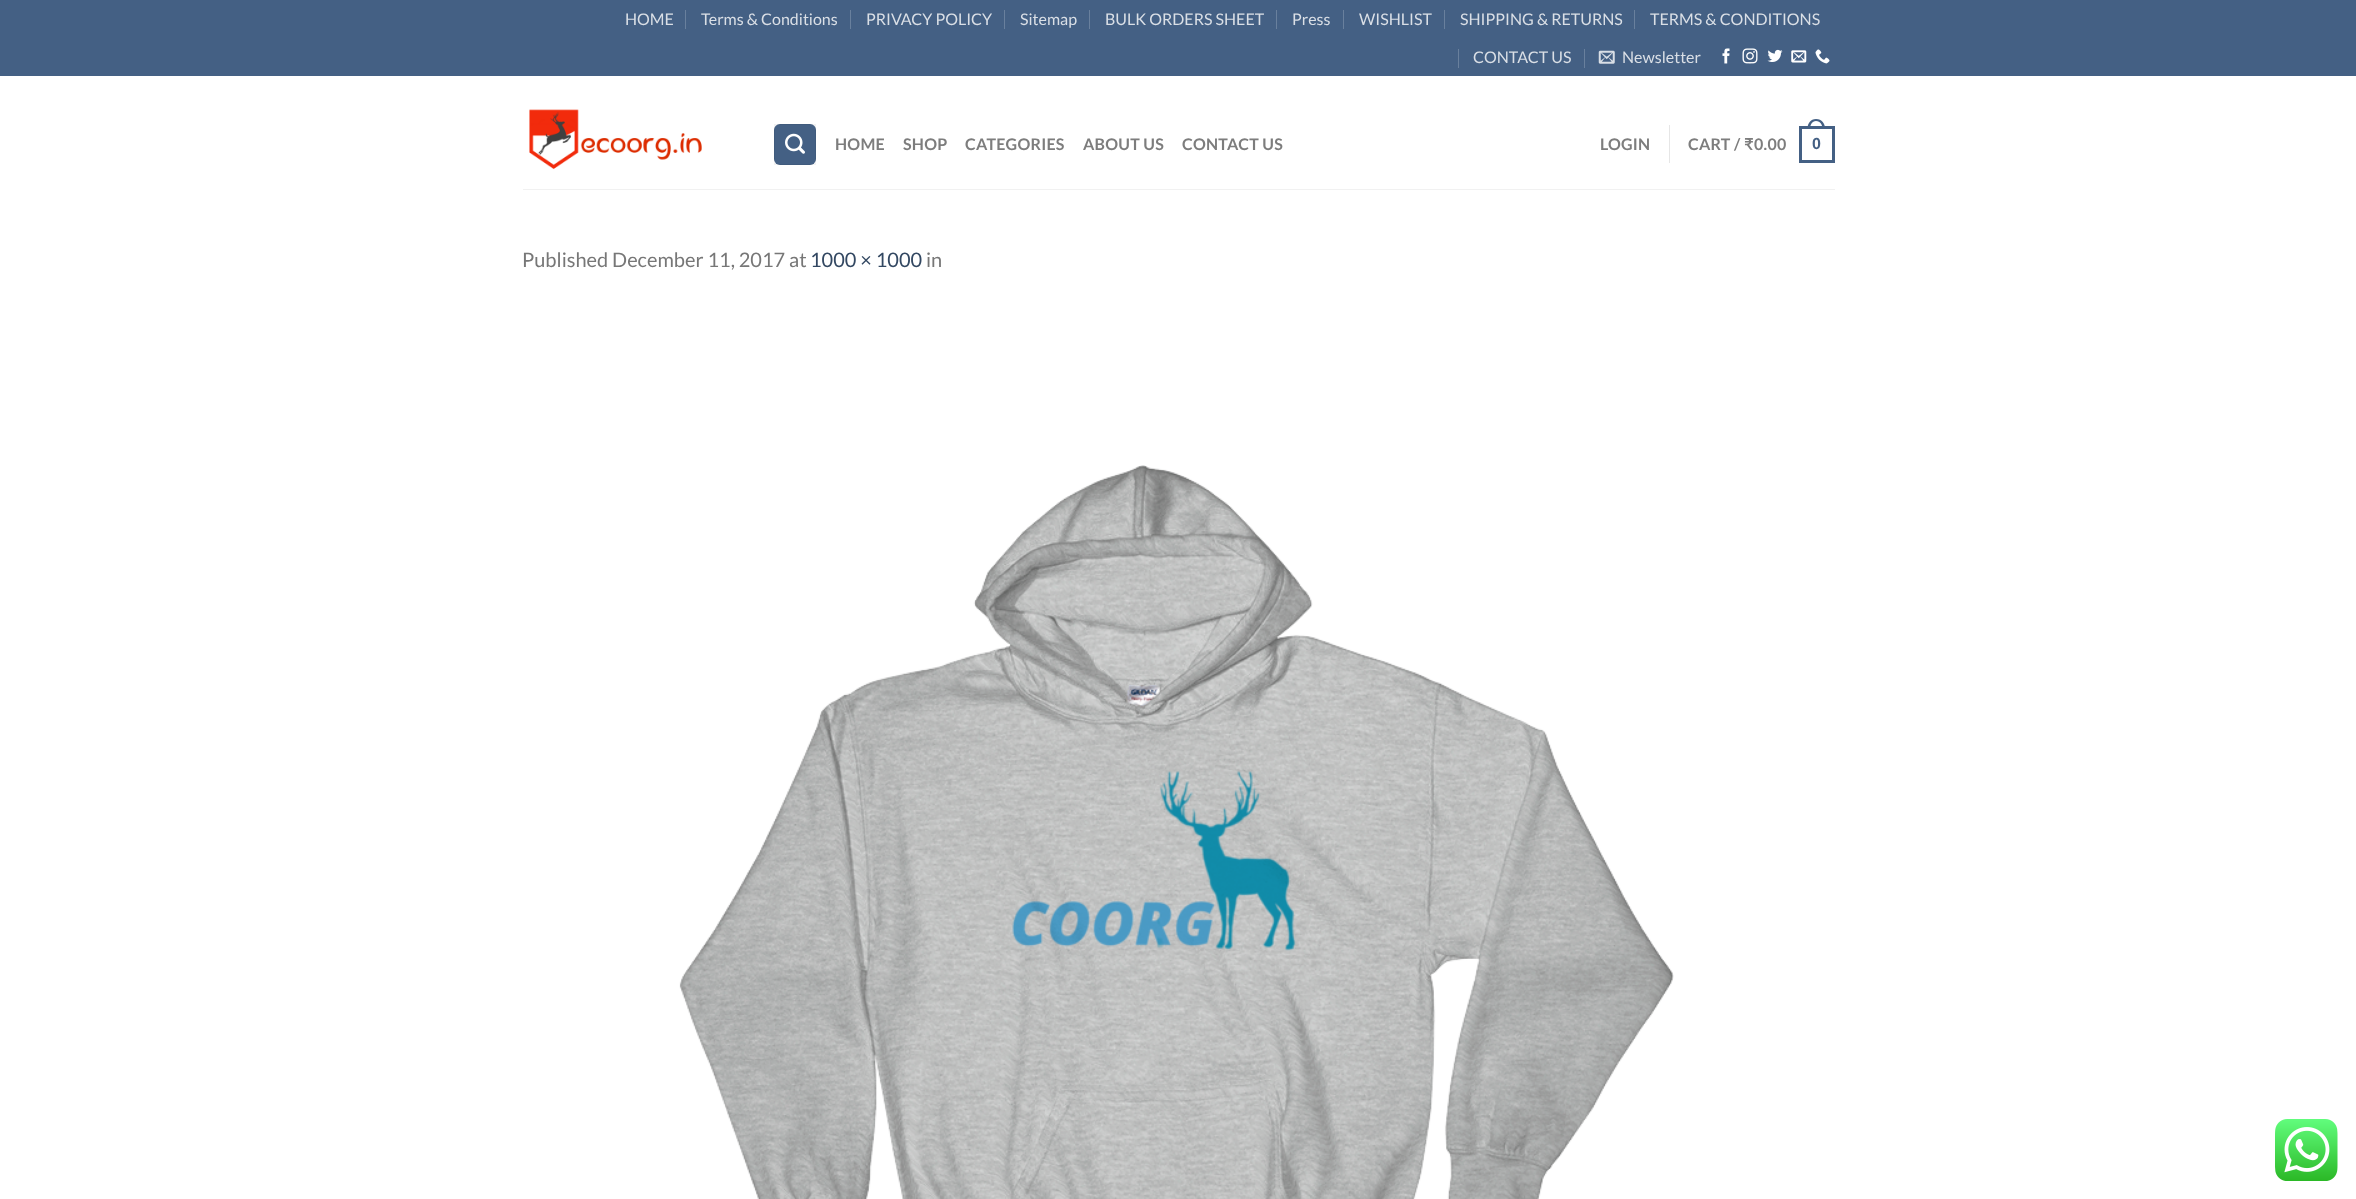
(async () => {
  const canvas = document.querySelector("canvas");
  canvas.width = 2356;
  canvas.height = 1199;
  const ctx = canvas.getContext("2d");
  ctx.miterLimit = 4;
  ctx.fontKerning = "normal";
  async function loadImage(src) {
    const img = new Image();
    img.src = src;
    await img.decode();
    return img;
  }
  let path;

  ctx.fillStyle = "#ffffff";
  ctx.fillRect(0, 0, 2356, 1199);
  for (const [x, y, w, h, color] of [
    [0, 0, 2356, 76, "#446084"],
    [685, 10, 1, 19, "#69809d"],
    [850, 10, 1, 19, "#69809d"],
    [1004, 10, 1, 19, "#69809d"],
    [1089, 10, 1, 19, "#69809d"],
    [1276, 10, 1, 19, "#69809d"],
    [1343, 10, 1, 19, "#69809d"],
    [1444, 10, 1, 19, "#69809d"],
    [1634, 10, 1, 19, "#69809d"],
    [1458, 49, 1, 19, "#69809d"],
    [1584, 49, 1, 19, "#69809d"],
  ]) {
    ctx.fillStyle = color;
    ctx.fillRect(x, y, w, h);
  }
  ctx.drawImage(await loadImage("img/1.png"), 1598, 50, 17, 14);
  ctx.drawImage(await loadImage("img/2.png"), 1722, 48, 8, 16);
  ctx.drawImage(await loadImage("img/3.png"), 1742, 48, 16, 16);
  ctx.drawImage(await loadImage("img/4.png"), 1767, 49, 16, 13);
  ctx.drawImage(await loadImage("img/5.png"), 1791, 50, 16, 13);
  ctx.drawImage(await loadImage("img/6.png"), 1815, 49, 15, 15);
  ctx.drawImage(await loadImage("img/7.png"), 529, 109, 173, 61);
  ctx.fillStyle = "#446084";
  ctx.beginPath();
  ctx.roundRect(774, 124, 42, 41, 6);
  ctx.fill();
  ctx.strokeStyle = "rgba(0, 0, 0, 0.05)";
  ctx.strokeRect(774.5, 124.5, 41, 40);
  ctx.drawImage(await loadImage("img/8.png"), 785, 133, 20, 21);
  ctx.fillStyle = "#e6e6e6";
  ctx.fillRect(1669, 125, 1, 38);
  ctx.strokeStyle = "#446084";
  ctx.lineWidth = 3;
  ctx.strokeRect(1800.5, 127.5, 33, 34);
  ctx.fillStyle = "#446084";
  path = new Path2D("M1816 119C1822 119 1825 123.5 1825 129H1807.5C1807.5 123.5 1810.5 119 1816 119ZM1816 121C1820.5 121 1822.5 125 1822.5 129H1810C1810 125 1812 121 1816 121Z");
  ctx.fill(path, "evenodd");
  ctx.fillStyle = "#f1f1f1";
  ctx.fillRect(523, 189, 1312, 1);
  ctx.drawImage(await loadImage("img/9.png"), 679, 465, 995, 734);
  ctx.drawImage(await loadImage("img/10.png"), 2275, 1119, 63, 62);
  ctx.font = "16px Lato";
  ctx.fillStyle = "#dadfe6";
  for (const [text, x, y] of [
    ["HOME", 625, 25],
    ["Terms & Conditions", 701, 25],
    ["PRIVACY POLICY", 866, 25],
    ["Sitemap", 1020, 25],
    ["BULK ORDERS SHEET", 1105, 25],
    ["Press", 1292, 25],
    ["WISHLIST", 1359, 25],
    ["SHIPPING & RETURNS", 1460, 25],
    ["TERMS & CONDITIONS", 1650, 25],
    ["CONTACT US", 1473, 63],
    ["Newsletter", 1622, 63],
  ]) {
    ctx.fillText(text, x, y);
  }
  ctx.letterSpacing = "0.25px";
  ctx.font = "bold 16px Lato";
  ctx.fillStyle = "#7d7d7d";
  for (const [text, x, y] of [
    ["HOME", 835, 150],
    ["SHOP", 903, 150],
    ["CATEGORIES", 965, 150],
    ["ABOUT US", 1083, 150],
    ["CONTACT US", 1182, 150],
    ["LOGIN", 1600, 150],
    ["CART /", 1688, 150],
  ]) {
    ctx.fillText(text, x, y);
  }
  ctx.font = "bold 16px 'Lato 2'";
  ctx.fillText("₹", 1744, 150);
  ctx.font = "bold 16px Lato";
  ctx.fillText("0.00", 1754, 150);
  ctx.font = "bold 16px Liberation Sans";
  ctx.fillStyle = "#446084";
  ctx.fillText("0", 1812, 149);
  ctx.letterSpacing = "0px";
  ctx.font = "20px Lato";
  ctx.fillStyle = "#777777";
  ctx.fillText("Published December 11, 2017 at", 522, 267);
  ctx.fillStyle = "#334862";
  ctx.fillText("1000 × 1000", 810, 267);
  ctx.fillStyle = "#777777";
  ctx.fillText("in", 926, 267);
})();
